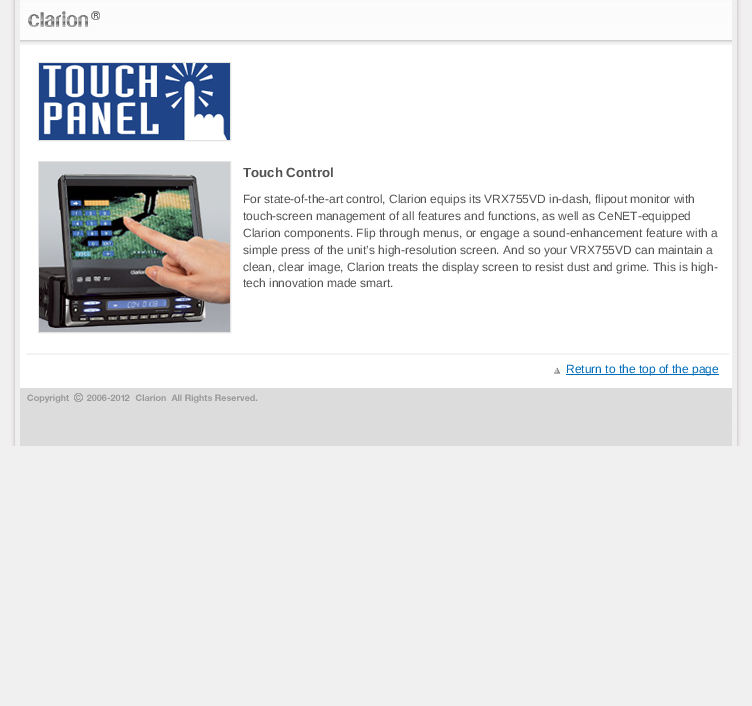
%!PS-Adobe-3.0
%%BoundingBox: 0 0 752 706
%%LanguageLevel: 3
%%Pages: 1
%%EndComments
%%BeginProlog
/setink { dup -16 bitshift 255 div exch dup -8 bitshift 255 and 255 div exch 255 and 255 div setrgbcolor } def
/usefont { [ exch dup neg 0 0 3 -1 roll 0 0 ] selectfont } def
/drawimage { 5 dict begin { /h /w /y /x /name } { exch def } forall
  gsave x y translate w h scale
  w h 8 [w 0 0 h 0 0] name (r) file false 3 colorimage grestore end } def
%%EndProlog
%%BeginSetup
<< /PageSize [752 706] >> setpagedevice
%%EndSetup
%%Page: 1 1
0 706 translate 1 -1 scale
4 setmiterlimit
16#F1F0F1 setink
0 0 752 706 rectfill
16#FFFFFF setink
20 47 712 341 rectfill
(img1.raw) 10 0 10 446 drawimage
(img2.raw) 732 0 10 446 drawimage
(img3.raw) 20 0 712 47 drawimage
(img4.raw) 28 11 72 16 drawimage
16#E3E3E3 setink
38.5 62.5 192 78 rectstroke
(img5.raw) 39 63 191 77 drawimage
38.5 161.5 192 171 rectstroke
(img6.raw) 39 162 191 170 drawimage
/LiberationSans-Bold 13.25 usefont
16#535353 setink
243 177 moveto (Touch Control) show
/LiberationSans-Regular 12 usefont
[
    [(For state-of-the-art control, Clarion equips its VRX755VD in-dash, flipout monitor with) 243 203]
    [(touch-screen management of all features and functions, as well as CeNET-equipped) 243 220]
    [(Clarion components. Flip through menus, or engage a sound-enhancement feature with a) 243 237]
    [(simple press of the unit’s high-resolution screen. And so your VRX755VD can maintain a) 243 254]
    [(clean, clear image, Clarion treats the display screen to resist dust and grime. This is high-) 243 271]
    [(tech innovation made smart.) 243 287]
] { aload pop moveto show } forall
16#F3F3F3 setink
26 353 703 2 rectfill
(img7.raw) 554 367 6 7 drawimage
16#006DBB setink
566 374 153 1 rectfill
566 373 moveto (Return to the top of the page) show
16#DCDCDC setink
20 388 712 58 rectfill
(img8.raw) 27 393 231 10 drawimage
showpage
%%EOF
